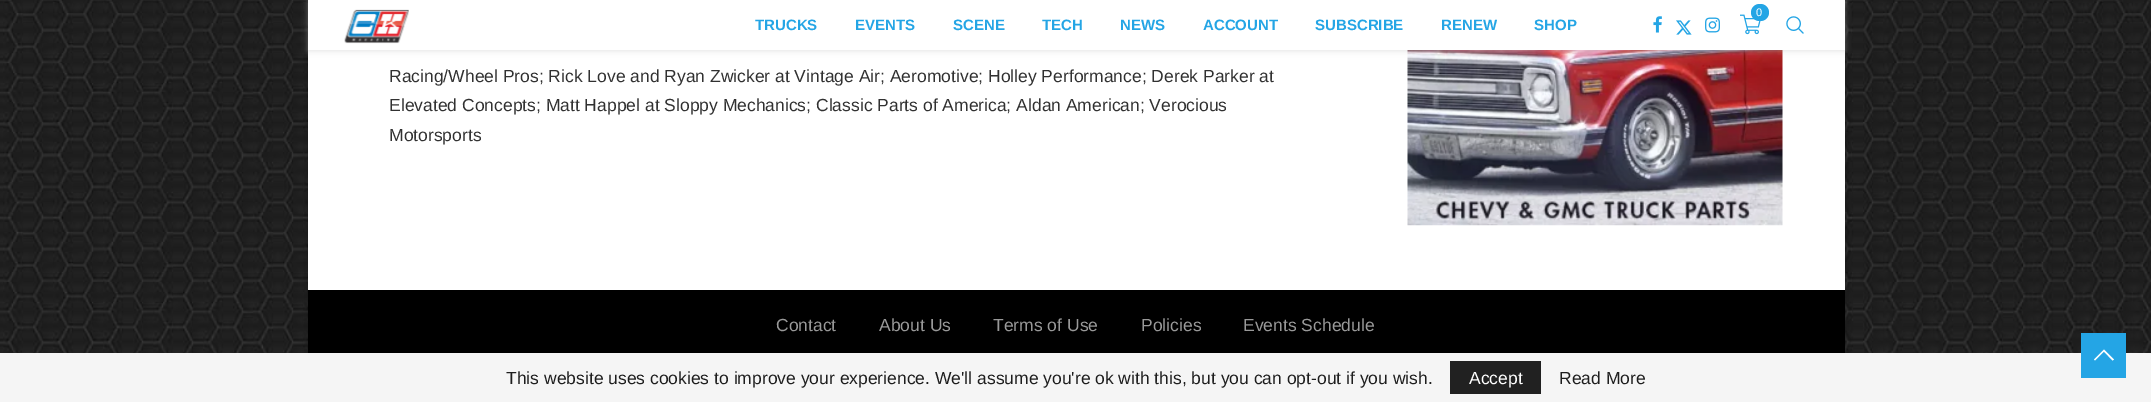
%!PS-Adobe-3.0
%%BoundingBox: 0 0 2151 402
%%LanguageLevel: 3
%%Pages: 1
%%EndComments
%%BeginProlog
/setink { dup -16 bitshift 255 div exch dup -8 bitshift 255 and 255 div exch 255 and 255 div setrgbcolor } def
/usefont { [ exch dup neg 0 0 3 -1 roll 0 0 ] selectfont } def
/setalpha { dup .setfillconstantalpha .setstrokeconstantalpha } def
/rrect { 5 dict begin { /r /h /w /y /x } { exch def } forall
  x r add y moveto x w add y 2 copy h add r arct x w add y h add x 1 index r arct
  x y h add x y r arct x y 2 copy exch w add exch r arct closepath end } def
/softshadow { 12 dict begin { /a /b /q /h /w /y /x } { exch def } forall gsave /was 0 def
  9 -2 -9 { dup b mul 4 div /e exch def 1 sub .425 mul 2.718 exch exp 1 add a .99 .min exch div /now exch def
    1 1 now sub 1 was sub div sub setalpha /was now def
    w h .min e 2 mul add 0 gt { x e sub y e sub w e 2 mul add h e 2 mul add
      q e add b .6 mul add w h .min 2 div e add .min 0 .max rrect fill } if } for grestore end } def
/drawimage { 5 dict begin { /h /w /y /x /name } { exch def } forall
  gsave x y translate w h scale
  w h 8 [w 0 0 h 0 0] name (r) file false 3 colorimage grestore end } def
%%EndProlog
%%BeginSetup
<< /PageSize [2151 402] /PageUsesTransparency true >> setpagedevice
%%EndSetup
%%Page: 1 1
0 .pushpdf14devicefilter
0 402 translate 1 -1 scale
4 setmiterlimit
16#FFFFFF setink
0 0 2151 402 rectfill
(img1.raw) 0 0 2151 353 drawimage
16#000000 setink
308 -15 1537 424 0 5 0.2 softshadow
16#FFFFFF setink
308 50 1537 240 rectfill
(img8.raw) 1407 50 376 176 drawimage
16#BEBEBE setink
308 1 1537 50 0 3 0.46 softshadow
16#FFFFFF setink
308 0 1537 50 rectfill
(img2.raw) 344 9 65 35 drawimage
/LiberationSans-Bold 15 usefont
16#24A5E5 setink
[
    [(TRUCKS) 755 30]
    [(EVENTS) 855 30]
    [(SCENE) 953 30]
    [(TECH) 1042 30]
    [(NEWS) 1120 30]
    [(ACCOUNT) 1203 30]
    [(SUBSCRIBE) 1315 30]
    [(RENEW) 1441 30]
    [(SHOP) 1534 30]
] { aload pop moveto show } forall
(img3.raw) 1653 16 9 17 drawimage
(img4.raw) 1676 20 16 15 drawimage
(img5.raw) 1705 17 15 16 drawimage
(img6.raw) 1740 14 21 21 drawimage
1751 4 18 17 8.5 rrect fill
/LiberationSans-Regular 11 usefont
16#FFFFFF setink
1756 16 moveto (0) show
(img7.raw) 1786 16 18 18 drawimage
/LiberationSans-Regular 17.5 usefont
16#313131 setink
[
    [(Racing/Wheel Pros; Rick Love and Ryan Zwicker at Vintage Air; Aeromotive; Holley Performance; Derek Parker at) 389 82]
    [(Elevated Concepts; Matt Happel at Sloppy Mechanics; Classic Parts of America; Aldan American; Verocious) 389 111]
    [(Motorsports) 389 141]
] { aload pop moveto show } forall
16#000000 setink
308 290 1537 63 rectfill
16#999999 setink
[
    [(Contact) 776 331]
    [(About Us) 879 331]
    [(Terms of Use) 993 331]
    [(Policies) 1141 331]
    [(Events Schedule) 1243 331]
] { aload pop moveto show } forall
16#F5F5F5 setink
0 353 2151 49 rectfill
16#1E1E1E setink
506 384 moveto (This website uses cookies to improve your experience. We'll assume you're ok with this, but you can opt-out if you wish.) show
16#212121 setink
1450 361 91 33 rectfill
16#FFFFFF setink
1469 384 moveto (Accept) show
16#1E1E1E setink
1559 384 moveto (Read More) show
16#24A5E5 setink
2081 333 45 45 rectfill
16#FFFFFF setink
2104 349.5 moveto 2094 359.5 lineto 2095 360.5 lineto 2104 351.5 lineto 2112.5 360.5 lineto 2114 359.5 lineto closepath fill
.poppdf14devicefilter showpage
%%EOF
